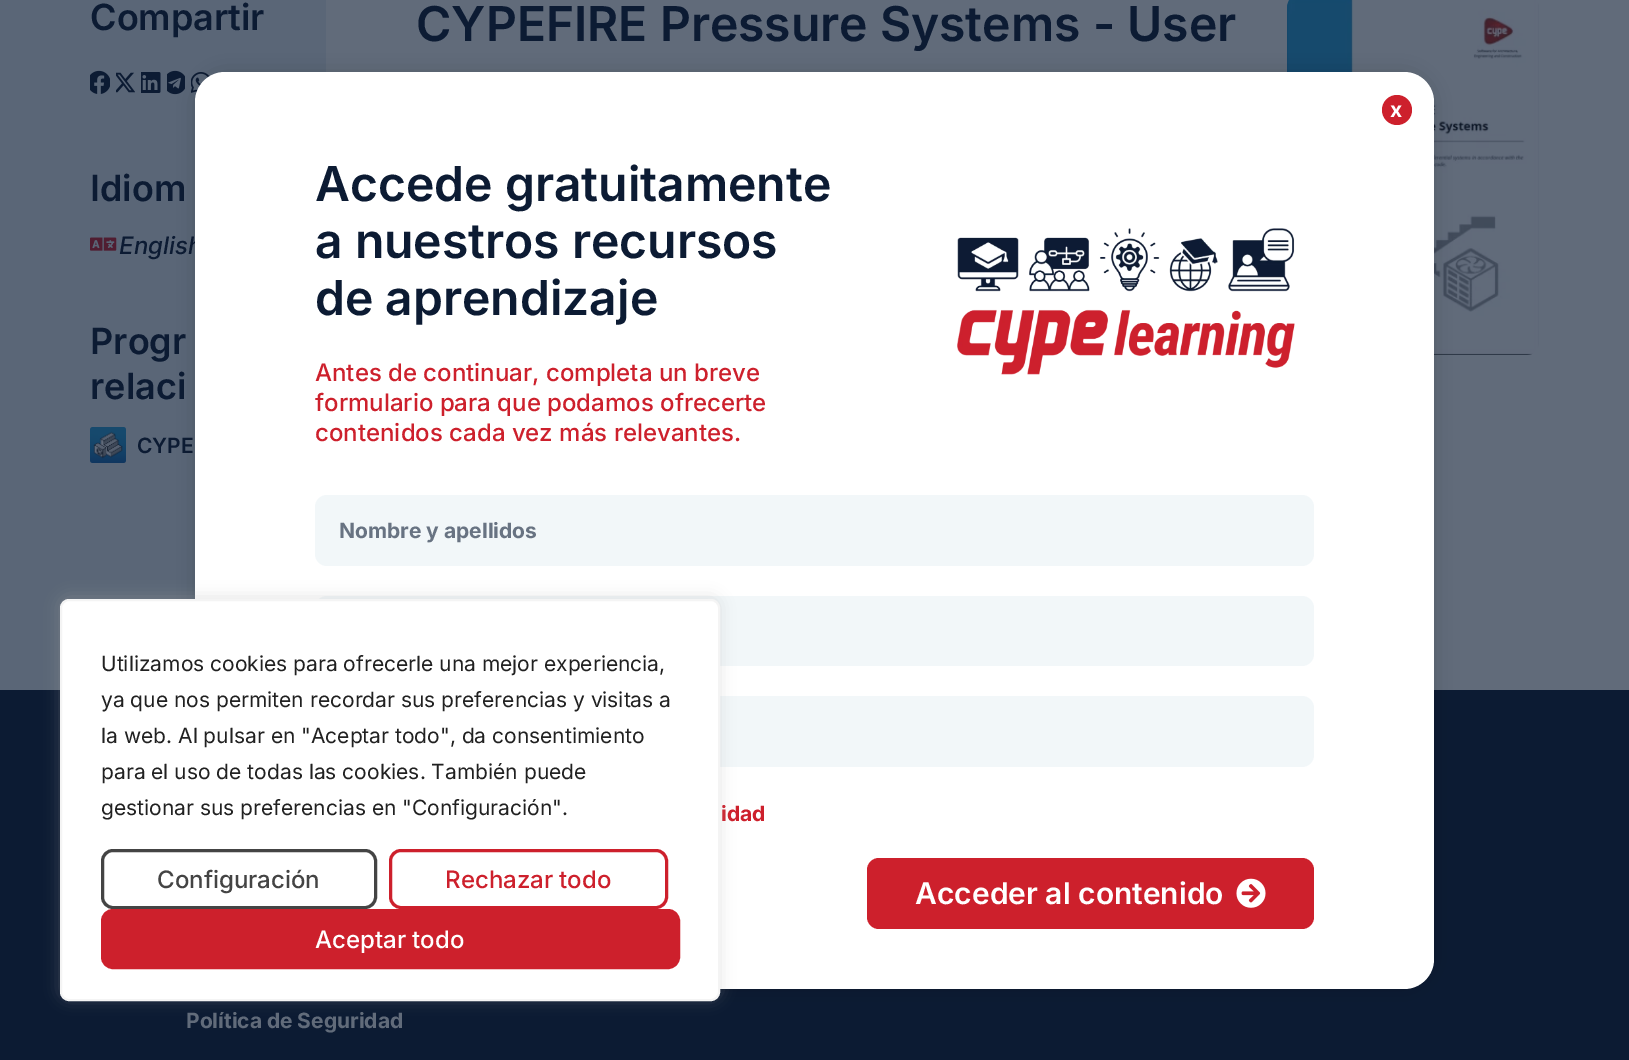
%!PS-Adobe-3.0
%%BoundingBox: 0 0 1629 1060
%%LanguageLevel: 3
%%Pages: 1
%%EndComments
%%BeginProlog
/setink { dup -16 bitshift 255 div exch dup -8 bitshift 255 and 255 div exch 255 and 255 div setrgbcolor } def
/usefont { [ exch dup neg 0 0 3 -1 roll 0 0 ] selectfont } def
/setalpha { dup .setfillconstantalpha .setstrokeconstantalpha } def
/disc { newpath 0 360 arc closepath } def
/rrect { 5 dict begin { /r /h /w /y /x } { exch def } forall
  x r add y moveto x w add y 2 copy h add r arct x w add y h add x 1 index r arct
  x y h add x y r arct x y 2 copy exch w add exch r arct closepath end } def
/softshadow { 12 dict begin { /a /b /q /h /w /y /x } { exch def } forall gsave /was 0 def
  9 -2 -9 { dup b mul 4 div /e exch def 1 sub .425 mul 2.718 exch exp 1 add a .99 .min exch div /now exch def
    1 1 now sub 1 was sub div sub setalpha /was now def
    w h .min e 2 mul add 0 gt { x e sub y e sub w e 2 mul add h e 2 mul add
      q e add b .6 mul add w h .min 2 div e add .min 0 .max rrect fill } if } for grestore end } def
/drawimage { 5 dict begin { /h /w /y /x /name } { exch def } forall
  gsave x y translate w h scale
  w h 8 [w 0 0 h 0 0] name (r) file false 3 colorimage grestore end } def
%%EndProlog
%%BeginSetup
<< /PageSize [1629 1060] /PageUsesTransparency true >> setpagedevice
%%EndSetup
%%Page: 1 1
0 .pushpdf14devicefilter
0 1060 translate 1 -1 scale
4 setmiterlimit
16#616B7A setink
0 0 1629 1060 rectfill
16#5A6677 setink
0 0 326 690 rectfill
/Inter-SemiBold 36 usefont
16#0C1B33 setink
90 30 moveto (Compartir) show
(img1.raw) 90 70 20 24 drawimage
(img2.raw) 116 72 19 21 drawimage
(img3.raw) 141 72 20 21 drawimage
(img4.raw) 167 70 18 25 drawimage
(img5.raw) 191 72 19 21 drawimage
(img6.raw) 216 73 2 1 drawimage
90 201 moveto (Idiom) show
(img7.raw) 90 237 27 14 drawimage
/Inter-MediumItalic 24 usefont
119 254 moveto (English) show
/Inter-SemiBold 36 usefont
90 354 moveto (Progr) show
90 399 moveto (relaci) show
(img8.raw) 90 427 36 36 drawimage
/Inter-SemiBold 21 usefont
137 453 moveto (CYPE) show
/Inter-SemiBold 48 usefont
416 41 moveto (CYPEFIRE Pressure Systems - User) show
(img9.raw) 1287 0 252 355 drawimage
0 690 1629 370 rectfill
/Inter-Bold 21 usefont
16#616B7A setink
186 1028 moveto (Política de Seguridad) show
16#000000 setink
195 72 1239 917 30 11 0.15 softshadow
16#FFFFFF setink
195 72 1239 917 30 rrect fill
16#CD202C setink
1397 110 15 disc fill
16#FFFFFF setink
1390 117 moveto (x) show
/Inter-SemiBold 48 usefont
16#0C1B33 setink
[
    [(Accede gratuitamente) 315 201]
    [(a nuestros recursos) 315 258]
    [(de aprendizaje) 315 315]
] { aload pop moveto show } forall
/Inter-Medium 24 usefont
16#CD202C setink
[
    [(Antes de continuar, completa un breve) 315 381]
    [(formulario para que podamos ofrecerte) 315 411]
    [(contenidos cada vez más relevantes.) 315 441]
] { aload pop moveto show } forall
(img10.raw) 957 228 338 147 drawimage
16#F2F7F9 setink
315 495 999 71 12 rrect fill
/Inter-Bold 21 usefont
16#687382 setink
339 538 moveto (Nombre y apellidos) show
16#F2F7F9 setink
315 596 999 70 12 rrect fill
572 696 742 71 12 rrect fill
16#CD202C setink
721 821 moveto (idad) show
867 858 447 71 12 rrect fill
/Inter-SemiBold 30 usefont
16#FFFFFF setink
915 904 moveto (Acceder al contenido) show
(img11.raw) 1236 878 30 30 drawimage
16#ACABAB setink
60 597 660 402 9 7.5 0.3 softshadow
16#FFFFFF setink
61 600 658 400 8 rrect gsave fill grestore
16#F4F4F4 setink
2 setlinewidth
stroke
/Inter-Regular 21 usefont
16#212121 setink
[
    [(Utilizamos cookies para ofrecerle una mejor experiencia,) 101 671]
    [(ya que nos permiten recordar sus preferencias y visitas a) 101 707]
    [(la web. Al pulsar en "Aceptar todo", da consentimiento) 101 743]
    [(para el uso de todas las cookies. También puede) 101 779]
    [(gestionar sus preferencias en "Configuración".) 101 815]
] { aload pop moveto show } forall
16#444444 setink
3 setlinewidth
102.5 850.5 273 57 10.5 rrect stroke
/Inter-Medium 24 usefont
157 888 moveto (Configuración) show
16#CD202C setink
390.5 850.5 276 57 10.5 rrect stroke
445 888 moveto (Rechazar todo) show
102.5 910.5 576 57 10.5 rrect gsave fill grestore
stroke
16#FFFFFF setink
315 948 moveto (Aceptar todo) show
.poppdf14devicefilter showpage
%%EOF
